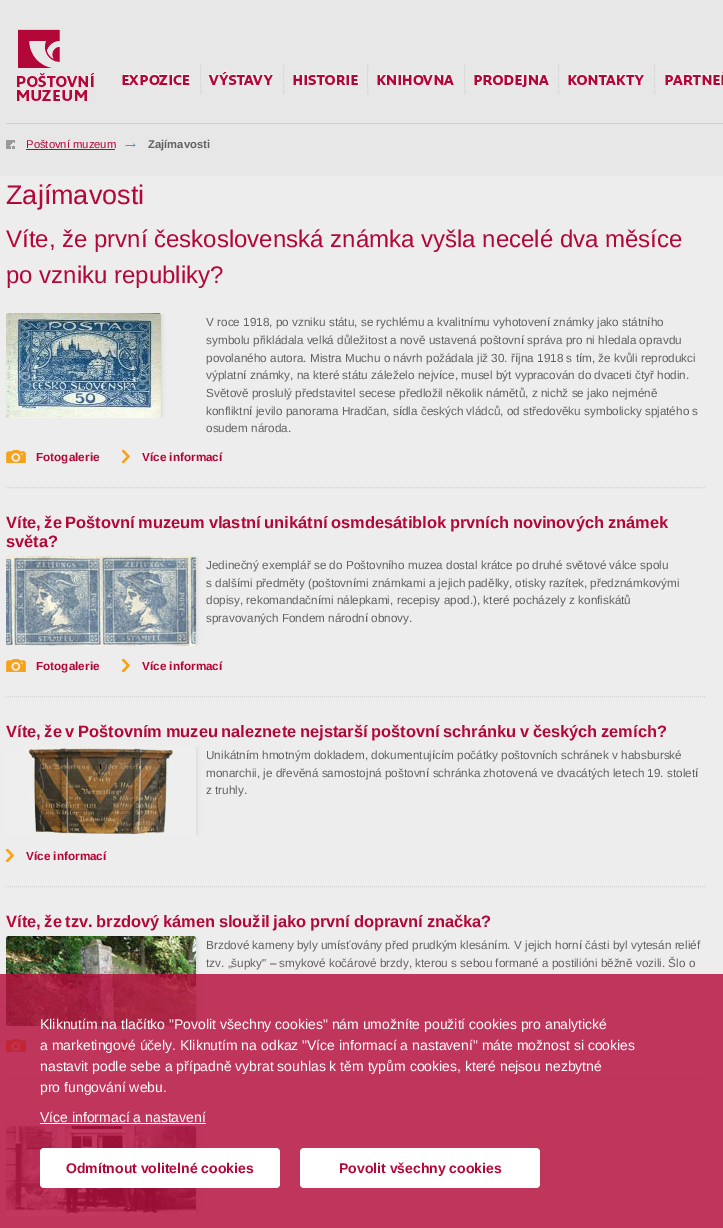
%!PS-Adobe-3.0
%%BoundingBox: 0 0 723 1228
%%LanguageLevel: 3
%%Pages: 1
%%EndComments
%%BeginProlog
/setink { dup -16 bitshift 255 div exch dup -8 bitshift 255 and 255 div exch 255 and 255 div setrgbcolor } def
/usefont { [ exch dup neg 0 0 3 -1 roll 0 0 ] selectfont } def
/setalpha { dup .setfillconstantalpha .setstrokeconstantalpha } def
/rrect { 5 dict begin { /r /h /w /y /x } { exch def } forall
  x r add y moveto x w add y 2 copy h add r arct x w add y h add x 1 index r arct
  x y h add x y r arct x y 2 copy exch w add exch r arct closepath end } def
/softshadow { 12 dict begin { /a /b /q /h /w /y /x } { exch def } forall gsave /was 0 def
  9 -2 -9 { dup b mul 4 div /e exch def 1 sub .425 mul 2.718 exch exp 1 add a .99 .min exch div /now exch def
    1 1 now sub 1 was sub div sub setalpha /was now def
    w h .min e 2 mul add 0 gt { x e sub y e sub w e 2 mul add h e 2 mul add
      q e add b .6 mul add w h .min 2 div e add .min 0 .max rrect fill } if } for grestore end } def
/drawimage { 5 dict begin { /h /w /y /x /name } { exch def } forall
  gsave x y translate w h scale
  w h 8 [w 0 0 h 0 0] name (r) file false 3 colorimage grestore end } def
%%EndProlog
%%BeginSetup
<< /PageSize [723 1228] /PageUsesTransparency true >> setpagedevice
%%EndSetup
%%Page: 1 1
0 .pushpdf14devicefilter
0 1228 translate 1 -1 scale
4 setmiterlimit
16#EDEDED setink
0 0 723 1228 rectfill
16#E7E7E7 setink
0 0 723 176 rectfill
16#D2CECF setink
6 123 717 1 rectfill
(img1.raw) 17 29 77 72 drawimage
(img2.raw) 113 70 78 15 drawimage
[1 1] 0 setdash
200.5 65 moveto 200.5 95 lineto stroke
(img3.raw) 201 67 73 18 drawimage
283.5 65 moveto 283.5 95 lineto stroke
(img4.raw) 284 70 75 15 drawimage
367.5 65 moveto 367.5 95 lineto stroke
(img5.raw) 368 70 87 15 drawimage
464.5 65 moveto 464.5 95 lineto stroke
(img6.raw) 465 70 85 17 drawimage
558.5 65 moveto 558.5 95 lineto stroke
(img7.raw) 559 70 86 15 drawimage
654.5 65 moveto 654.5 95 lineto stroke
(img8.raw) 655 67 68 18 drawimage
(img9.raw) 6 140 9 9 drawimage
/LiberationSans-Regular 11.25 usefont
16#B30738 setink
26 148 moveto (Poštovní muzeum) show
26 149 89 1 rectfill
(img10.raw) 125 143 11 4 drawimage
/LiberationSans-Bold 11.25 usefont
16#616161 setink
148 148 moveto (Zajímavosti) show
/LiberationSans-Regular 27 usefont
16#B30738 setink
6 204 moveto (Zajímavosti) show
/LiberationSans-Regular 24 usefont
6 247 moveto (Víte, že první československá známka vyšla necelé dva měsíce) show
6 283 moveto (po vzniku republiky?) show
gsave
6 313 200 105 rectclip
16#C9C9C9 setink
6 313 155 105 3 2.5 1 softshadow
grestore
(img11.raw) 6 313 155 105 drawimage
/LiberationSans-Regular 11.75 usefont
16#616161 setink
[
    [(V roce 1918, po vzniku státu, se rychlému a kvalitnímu vyhotovení známky jako státního) 206 326]
    [(symbolu přikládala velká důležitost a nově ustavená poštovní správa pro ni hledala opravdu) 206 344]
    [(povolaného autora. Mistra Muchu o návrh požádala již 30. října 1918 s tím, že kvůli reprodukci) 206 362]
    [(výplatní známky, na které státu záleželo nejvíce, musel být vypracován do dvaceti čtyř hodin.) 206 379]
    [(Světově proslulý představitel secese předložil několik námětů, z nichž se jako nejméně) 206 397]
    [(konfliktní jevilo panorama Hradčan, sídla českých vládců, od středověku symbolicky spjatého s) 206 415]
    [(osudem národa.) 206 432]
] { aload pop moveto show } forall
(img12.raw) 6 450 20 13 drawimage
/LiberationSans-Bold 11.75 usefont
16#B30738 setink
36 461 moveto (Fotogalerie) show
(img13.raw) 122 450 8 13 drawimage
142 461 moveto (Více informací) show
16#D6D2D3 setink
6 487.5 moveto 706 487.5 lineto stroke
/LiberationSans-Bold 16.45 usefont
16#B30738 setink
6 528 moveto -1 0 32 (Víte, že Poštovní muzeum vlastní unikátní osmdesátiblok prvních novinových známek) widthshow
6 547 moveto (světa?) show
gsave
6 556 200 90 rectclip
16#C9C9C9 setink
6 556 190 90 3 2.5 1 softshadow
grestore
(img14.raw) 6 556 190 90 drawimage
/LiberationSans-Regular 11.75 usefont
16#616161 setink
[
    [(Jedinečný exemplář se do Poštovního muzea dostal krátce po druhé světové válce spolu) 206 569]
    [(s dalšími předměty \(poštovními známkami a jejich padělky, otisky razítek, předznámkovými) 206 587]
    [(dopisy, rekomandačními nálepkami, recepisy apod.\), které pocházely z konfiskátů) 206 604]
    [(spravovaných Fondem národní obnovy.) 206 622]
] { aload pop moveto show } forall
(img12.raw) 6 659 20 13 drawimage
/LiberationSans-Bold 11.75 usefont
16#B30738 setink
36 670 moveto (Fotogalerie) show
(img13.raw) 122 659 8 13 drawimage
142 670 moveto (Více informací) show
16#D6D2D3 setink
6 696.5 moveto 706 696.5 lineto stroke
/LiberationSans-Bold 16.45 usefont
16#B30738 setink
6 737 moveto -1 0 32 (Víte, že v Poštovním muzeu naleznete nejstarší poštovní schránku v českých zemích?) widthshow
gsave
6 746 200 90 rectclip
16#C9C9C9 setink
6 746 190 90 3 2.5 1 softshadow
grestore
(img15.raw) 6 746 190 90 drawimage
/LiberationSans-Regular 11.75 usefont
16#616161 setink
[
    [(Unikátním hmotným dokladem, dokumentujícím počátky poštovních schránek v habsburské) 206 759]
    [(monarchii, je dřevěná samostojná poštovní schránka zhotovená ve dvacátých letech 19. století) 206 777]
    [(z truhly.) 206 794]
] { aload pop moveto show } forall
(img13.raw) 6 849 8 13 drawimage
/LiberationSans-Bold 11.75 usefont
16#B30738 setink
26 860 moveto (Více informací) show
16#D6D2D3 setink
6 886.5 moveto 706 886.5 lineto stroke
/LiberationSans-Bold 16.45 usefont
16#B30738 setink
6 927 moveto -1 0 32 (Víte, že tzv. brzdový kámen sloužil jako první dopravní značka?) widthshow
gsave
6 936 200 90 rectclip
16#C9C9C9 setink
6 936 190 90 3 2.5 1 softshadow
grestore
(img16.raw) 6 936 190 90 drawimage
/LiberationSans-Regular 11.75 usefont
16#616161 setink
206 949 moveto (Brzdové kameny byly umísťovány před prudkým klesáním. V jejich horní části byl vytesán reliéf) show
206 967 moveto (tzv. „šupky" – smykové kočárové brzdy, kterou s sebou formané a postilióni běžně vozili. Šlo o) show
(img12.raw) 6 1039 20 13 drawimage
(img13.raw) 122 1039 8 13 drawimage
16#D6D2D3 setink
6 1076.5 moveto 706 1076.5 lineto stroke
gsave
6 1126 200 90 rectclip
16#C9C9C9 setink
6 1126 190 90 3 2.5 1 softshadow
grestore
(img17.raw) 6 1126 190 90 drawimage
0.8 setalpha
16#B30738 setink
0 974 723 254 rectfill
/LiberationSans-Regular 14 usefont
1 setalpha
16#FFFFFF setink
[
    [(Kliknutím na tlačítko "Povolit všechny cookies" nám umožníte použití cookies pro analytické) 40 1029]
    [(a marketingové účely. Kliknutím na odkaz "Více informací a nastavení" máte možnost si cookies) 40 1050]
    [(nastavit podle sebe a případně vybrat souhlas k těm typům cookies, které nejsou nezbytné) 40 1071]
    [(pro fungování webu.) 40 1092]
    [(Více informací a nastavení) 40 1122]
] { aload pop moveto show } forall
40 1123 166 1 rectfill
40 1148 240 40 4 rrect fill
/LiberationSans-Bold 14 usefont
16#B30738 setink
66 1173 moveto (Odmítnout volitelné cookies) show
16#FFFFFF setink
300 1148 240 40 4 rrect fill
16#B30738 setink
339 1173 moveto (Povolit všechny cookies) show
.poppdf14devicefilter showpage
%%EOF
